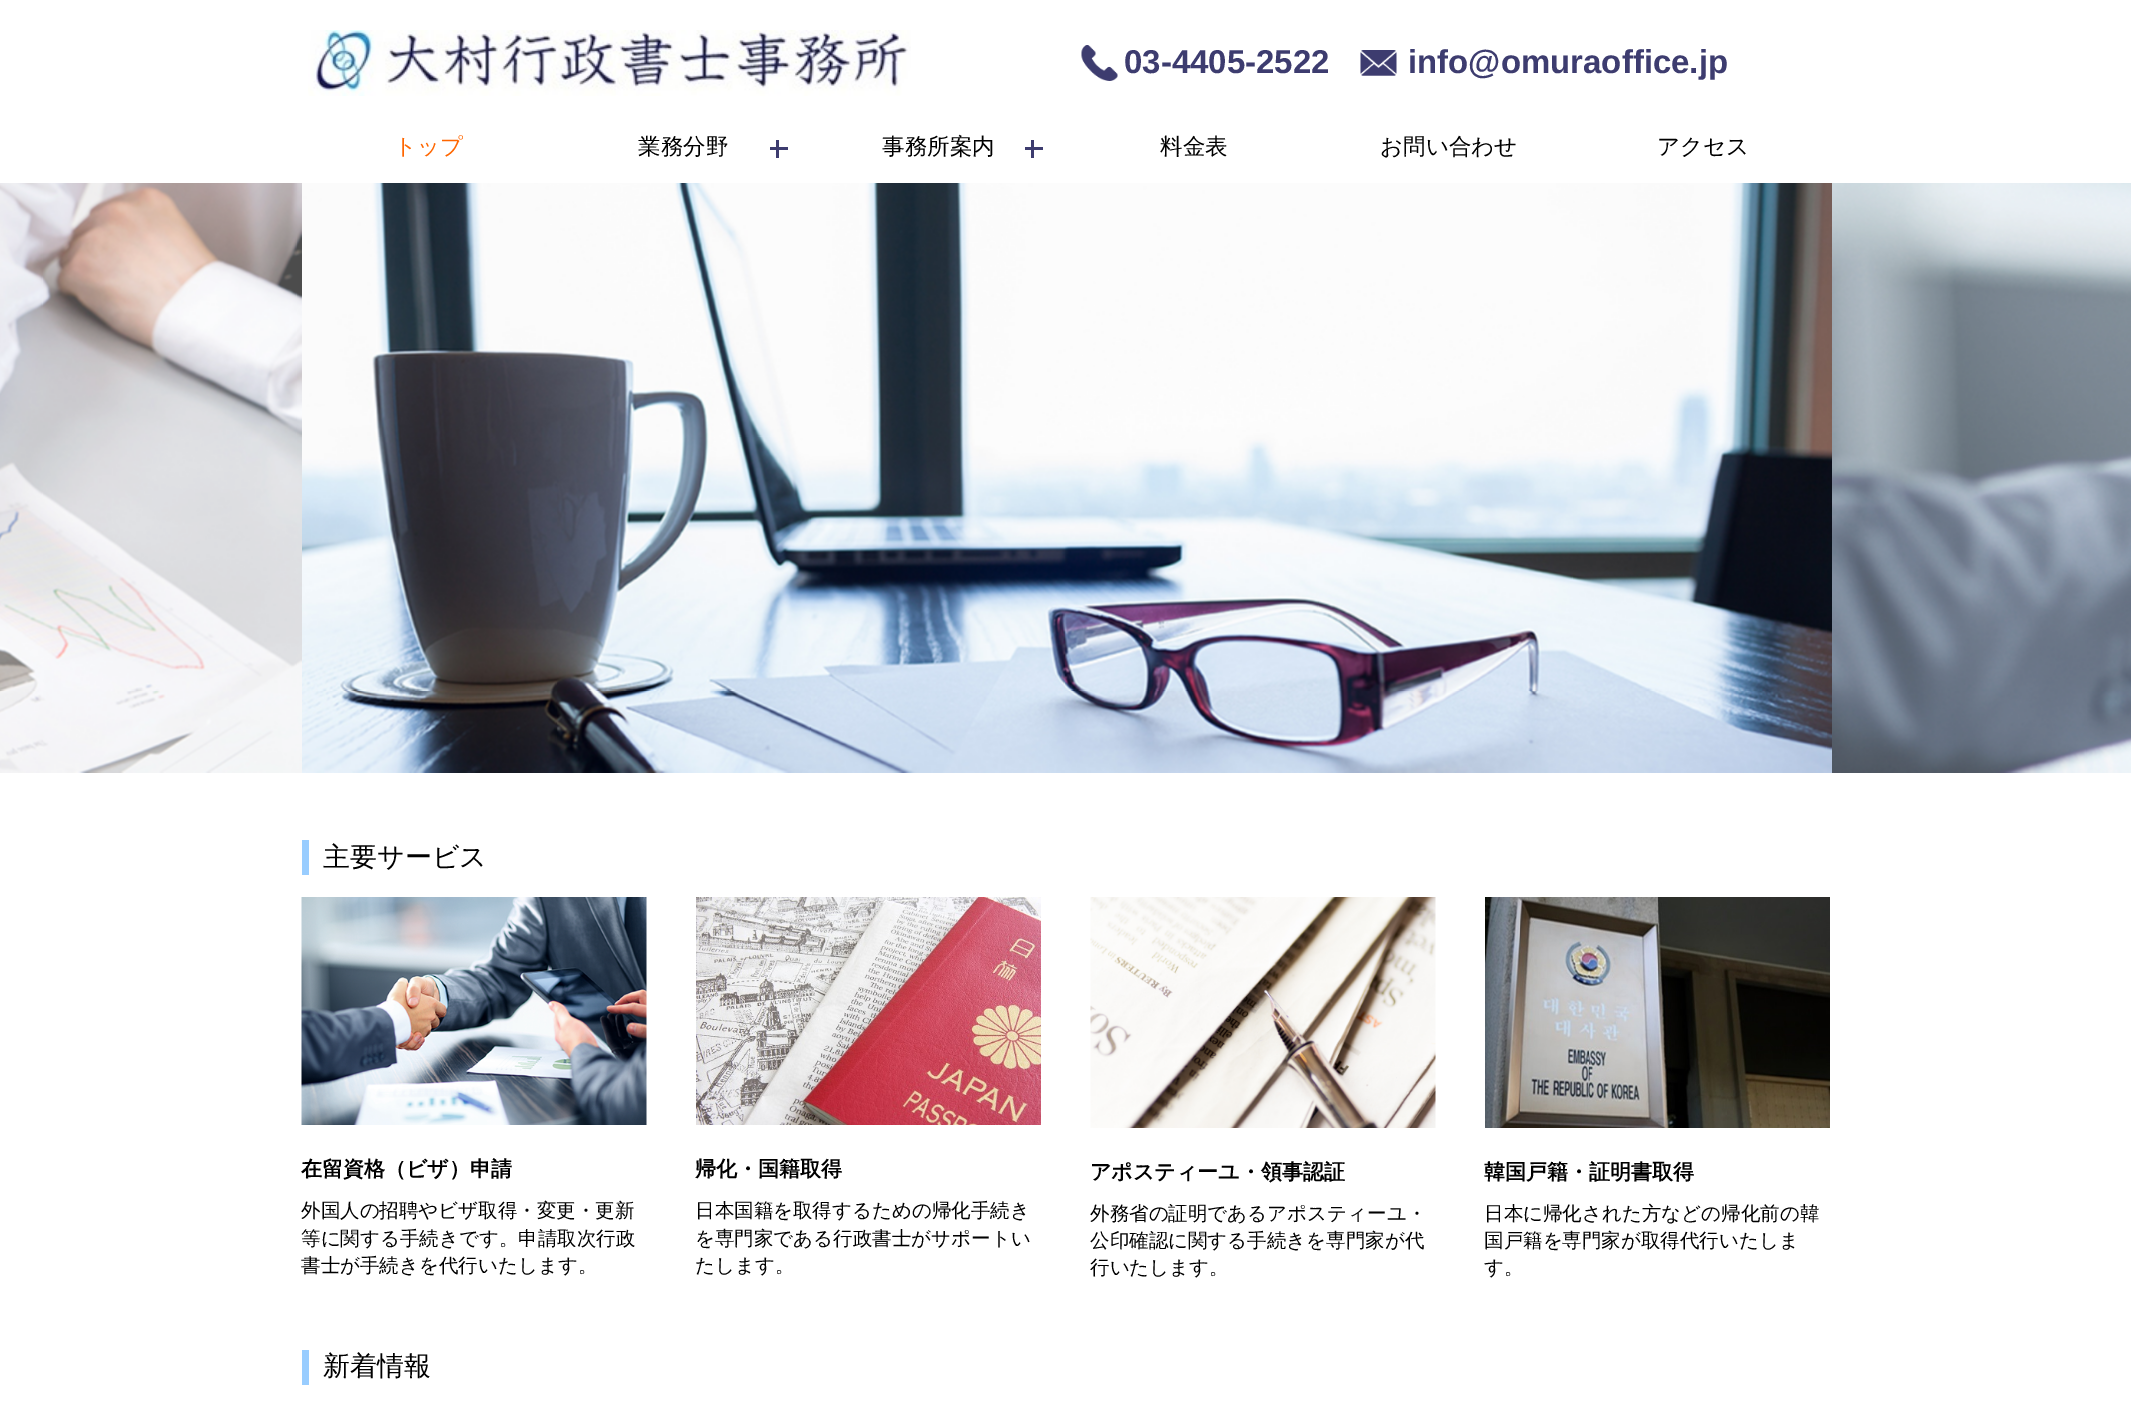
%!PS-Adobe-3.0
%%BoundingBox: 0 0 2131 1402
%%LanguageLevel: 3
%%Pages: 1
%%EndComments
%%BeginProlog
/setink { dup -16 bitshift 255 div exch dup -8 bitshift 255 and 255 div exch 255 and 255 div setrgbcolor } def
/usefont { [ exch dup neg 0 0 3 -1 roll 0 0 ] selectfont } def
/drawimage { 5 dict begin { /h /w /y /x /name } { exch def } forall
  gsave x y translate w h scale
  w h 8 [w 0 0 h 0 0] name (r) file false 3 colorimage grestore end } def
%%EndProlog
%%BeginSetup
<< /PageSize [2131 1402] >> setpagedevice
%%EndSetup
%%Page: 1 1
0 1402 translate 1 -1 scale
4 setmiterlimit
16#FFFFFF setink
0 0 2131 1402 rectfill
(img1.raw) 308 30 603 66 drawimage
(img2.raw) 1081 45 37 36 drawimage
/LiberationSans-Bold 33 usefont
16#3D3C6F setink
1124 73 moveto (03-4405-2522) show
(img3.raw) 1360 50 37 26 drawimage
1408 73 moveto (info@omuraoffice.jp) show
/WenQuanYiZenHei-Medium 22.5 usefont
16#FF6600 setink
394 154 moveto (トップ) show
16#000000 setink
638 154 moveto (業務分野) show
16#3D3C6F setink
770 147 18 3 rectfill
776 140 3 18 rectfill
16#000000 setink
882 154 moveto (事務所案内) show
16#3D3C6F setink
1025 147 18 3 rectfill
1031 140 3 18 rectfill
16#000000 setink
[
    [(料金表) 1160 154]
    [(お問い合わせ) 1380 154]
    [(アクセス) 1657 154]
] { aload pop moveto show } forall
(img4.raw) 0 183 302 590 drawimage
(img5.raw) 302 183 1530 590 drawimage
(img6.raw) 1832 183 299 590 drawimage
16#99CDFF setink
302 840 7 35 rectfill
/WenQuanYiZenHei-Medium 27 usefont
16#000000 setink
323 866 moveto (主要サービス) show
(img7.raw) 301 897 346 228 drawimage
/WenQuanYiZenHei-Bold 21 usefont
301 1176 moveto (在留資格（ビザ）申請) show
/WenQuanYiZenHei-Medium 19.5 usefont
[
    [(外国人の招聘やビザ取得・変更・更新) 301 1217]
    [(等に関する手続きです。申請取次行政) 301 1245]
    [(書士が手続きを代行いたします。) 301 1272]
] { aload pop moveto show } forall
(img8.raw) 696 897 345 228 drawimage
/WenQuanYiZenHei-Bold 21 usefont
695 1176 moveto (帰化・国籍取得) show
/WenQuanYiZenHei-Medium 19.5 usefont
[
    [(日本国籍を取得するための帰化手続き) 695 1217]
    [(を専門家である行政書士がサポートい) 695 1245]
    [(たします。) 695 1272]
] { aload pop moveto show } forall
(img9.raw) 1090 897 346 231 drawimage
/WenQuanYiZenHei-Bold 21 usefont
1090 1179 moveto (アポスティーユ・領事認証) show
/WenQuanYiZenHei-Medium 19.5 usefont
[
    [(外務省の証明であるアポスティーユ・) 1090 1220]
    [(公印確認に関する手続きを専門家が代) 1090 1247]
    [(行いたします。) 1090 1274]
] { aload pop moveto show } forall
(img10.raw) 1485 897 345 231 drawimage
/WenQuanYiZenHei-Bold 21 usefont
1484 1179 moveto (韓国戸籍・証明書取得) show
/WenQuanYiZenHei-Medium 19.5 usefont
[
    [(日本に帰化された方などの帰化前の韓) 1484 1220]
    [(国戸籍を専門家が取得代行いたしま) 1484 1247]
    [(す。) 1484 1274]
] { aload pop moveto show } forall
16#99CDFF setink
302 1350 7 35 rectfill
/WenQuanYiZenHei-Medium 27 usefont
16#000000 setink
323 1375 moveto (新着情報) show
showpage
%%EOF
